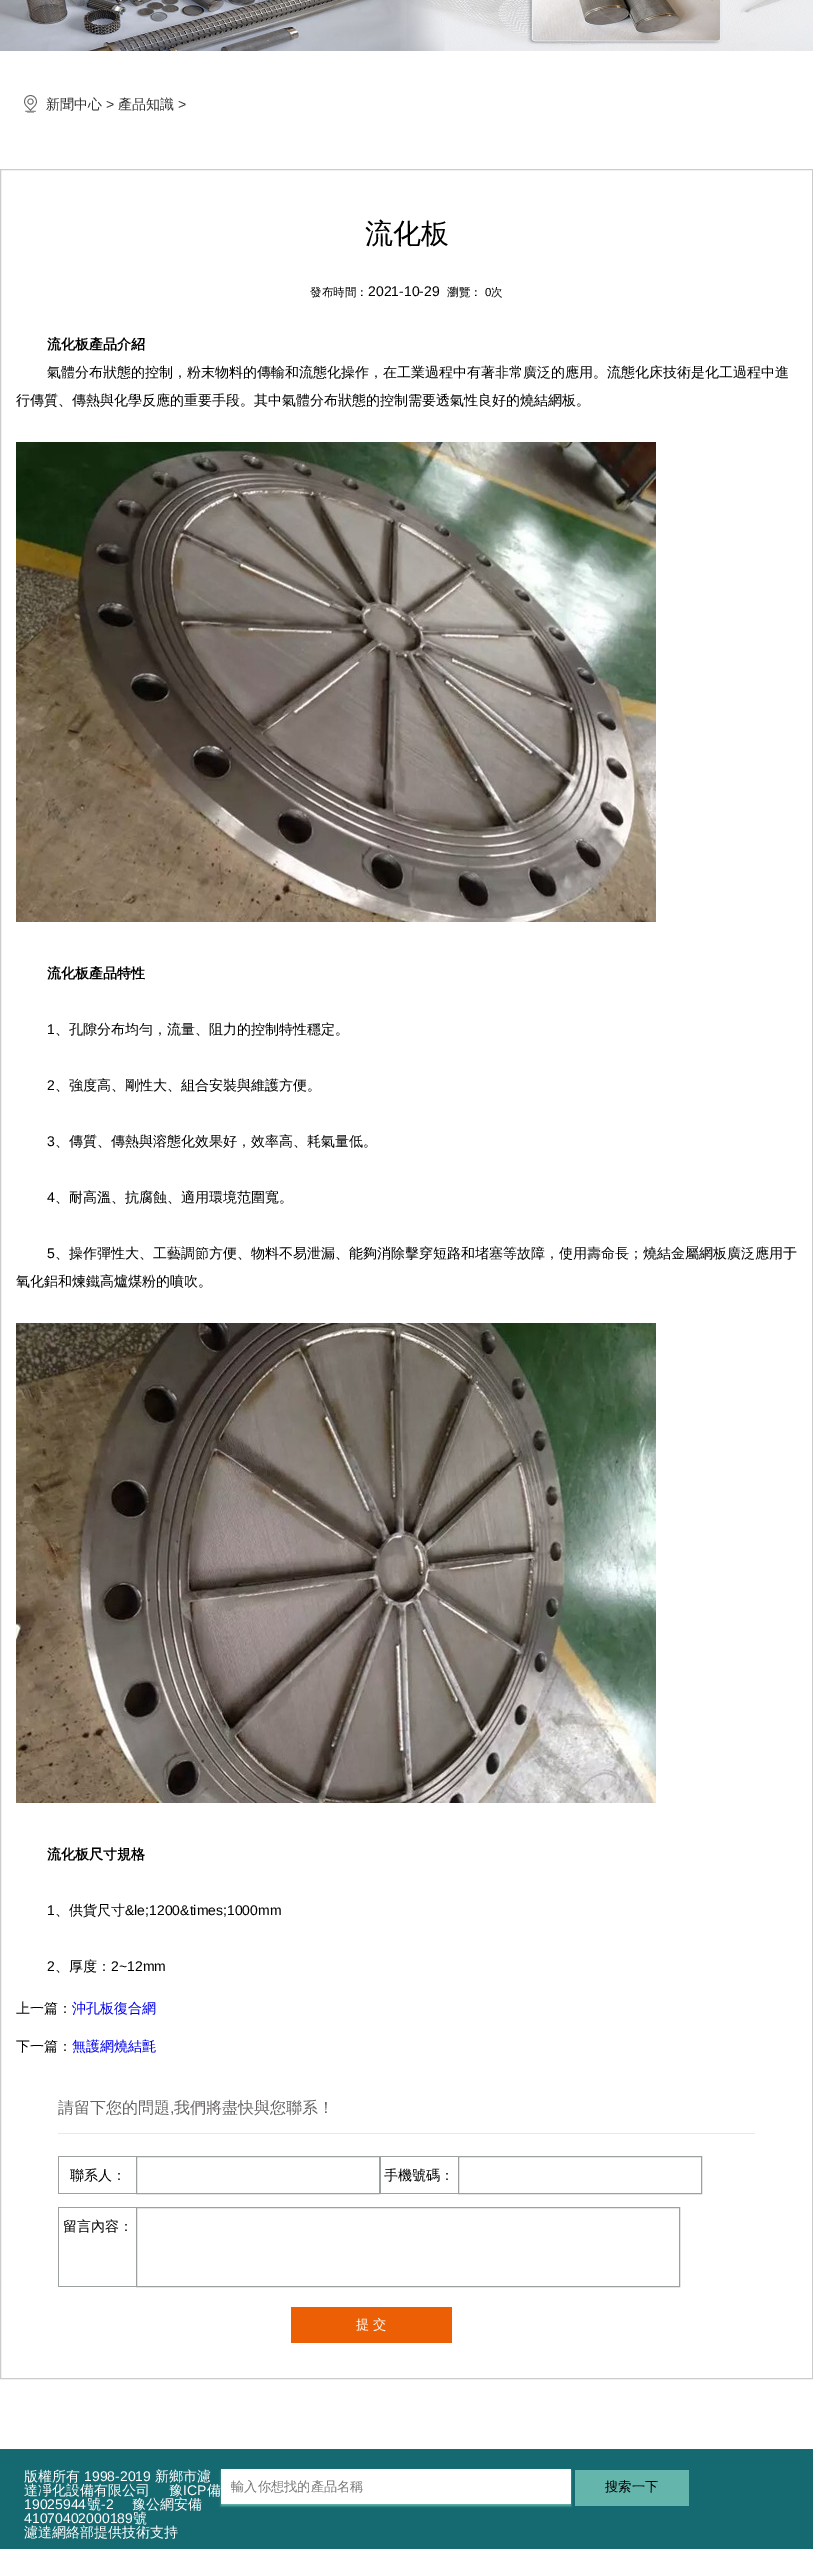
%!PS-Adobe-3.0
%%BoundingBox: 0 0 813 2549
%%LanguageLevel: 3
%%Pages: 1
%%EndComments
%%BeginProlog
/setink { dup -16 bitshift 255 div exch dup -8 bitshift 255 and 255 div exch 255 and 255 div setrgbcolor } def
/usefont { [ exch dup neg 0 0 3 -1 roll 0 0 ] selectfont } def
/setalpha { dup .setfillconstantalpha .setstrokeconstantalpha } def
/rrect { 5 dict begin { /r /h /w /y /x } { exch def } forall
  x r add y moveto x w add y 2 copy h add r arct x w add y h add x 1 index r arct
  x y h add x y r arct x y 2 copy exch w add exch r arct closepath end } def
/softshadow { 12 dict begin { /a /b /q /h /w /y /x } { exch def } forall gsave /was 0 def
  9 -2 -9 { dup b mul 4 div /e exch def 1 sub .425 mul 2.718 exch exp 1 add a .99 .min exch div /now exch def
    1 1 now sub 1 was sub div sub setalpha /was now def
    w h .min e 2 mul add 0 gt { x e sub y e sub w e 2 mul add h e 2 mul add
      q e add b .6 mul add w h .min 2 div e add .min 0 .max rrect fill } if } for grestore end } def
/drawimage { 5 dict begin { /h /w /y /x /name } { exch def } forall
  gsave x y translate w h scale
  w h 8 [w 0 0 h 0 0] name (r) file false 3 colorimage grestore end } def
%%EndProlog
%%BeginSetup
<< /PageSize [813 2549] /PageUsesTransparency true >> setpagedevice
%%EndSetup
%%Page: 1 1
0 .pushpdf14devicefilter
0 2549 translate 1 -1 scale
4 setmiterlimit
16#FFFFFF setink
0 0 813 2549 rectfill
(img1.raw) 0 0 813 51 drawimage
(img2.raw) 24 95 13 18 drawimage
/WenQuanYiZenHei-Medium 14 usefont
16#333333 setink
46 109 moveto (新聞中心) show
/LiberationSans-Regular 14 usefont
106 109 moveto (>) show
/WenQuanYiZenHei-Medium 14 usefont
118 109 moveto (產品知識) show
/LiberationSans-Regular 14 usefont
178 109 moveto (>) show
16#CCCCCC setink
0.5 169.5 812 2209 rectstroke
/WenQuanYiZenHei-Medium 28 usefont
16#000000 setink
365 243 moveto (流化板) show
/WenQuanYiZenHei-Medium 11.5 usefont
310 296 moveto (發布時間：) show
/LiberationSans-Regular 14 usefont
368 296 moveto (2021-10-29) show
/WenQuanYiZenHei-Medium 11.5 usefont
447 296 moveto (瀏覽：) show
/LiberationSans-Regular 11.5 usefont
485 296 moveto (0) show
/WenQuanYiZenHei-Medium 11.5 usefont
491 296 moveto (次) show
/WenQuanYiZenHei-Bold 14 usefont
47 349 moveto (流化板產品介紹) show
/WenQuanYiZenHei-Medium 14 usefont
47 377 moveto (氣體分布狀態的控制，粉末物料的傳輸和流態化操作，在工業過程中有著非常廣泛的應用。流態化床技術是化工過程中進) show
16 405 moveto (行傳質、傳熱與化學反應的重要手段。其中氣體分布狀態的控制需要透氣性良好的燒結網板。) show
(img3.raw) 16 442 640 480 drawimage
/WenQuanYiZenHei-Bold 14 usefont
47 978 moveto (流化板產品特性) show
/LiberationSans-Regular 14 usefont
47 1034 moveto (1) show
/WenQuanYiZenHei-Medium 14 usefont
55 1034 moveto (、孔隙分布均勻，流量、阻力的控制特性穩定。) show
/LiberationSans-Regular 14 usefont
47 1090 moveto (2) show
/WenQuanYiZenHei-Medium 14 usefont
55 1090 moveto (、強度高、剛性大、組合安裝與維護方便。) show
/LiberationSans-Regular 14 usefont
47 1146 moveto (3) show
/WenQuanYiZenHei-Medium 14 usefont
55 1146 moveto (、傳質、傳熱與溶態化效果好，效率高、耗氣量低。) show
/LiberationSans-Regular 14 usefont
47 1202 moveto (4) show
/WenQuanYiZenHei-Medium 14 usefont
55 1202 moveto (、耐高溫、抗腐蝕、適用環境范圍寬。) show
/LiberationSans-Regular 14 usefont
47 1258 moveto (5) show
/WenQuanYiZenHei-Medium 14 usefont
55 1258 moveto (、操作彈性大、工藝調節方便、物料不易泄漏、能夠消除擊穿短路和堵塞等故障，使用壽命長；燒結金屬網板廣泛應用于) show
16 1286 moveto (氧化鋁和煉鐵高爐煤粉的噴吹。) show
(img4.raw) 16 1323 640 480 drawimage
/WenQuanYiZenHei-Bold 14 usefont
47 1859 moveto (流化板尺寸規格) show
/LiberationSans-Regular 14 usefont
47 1915 moveto (1) show
/WenQuanYiZenHei-Medium 14 usefont
55 1915 moveto (、供貨尺寸) show
/LiberationSans-Regular 14 usefont
125 1915 moveto (&le;1200&times;1000mm) show
47 1971 moveto (2) show
/WenQuanYiZenHei-Medium 14 usefont
55 1971 moveto (、厚度：) show
/LiberationSans-Regular 14 usefont
111 1971 moveto (2~12mm) show
/WenQuanYiZenHei-Medium 14 usefont
16 2013 moveto (上一篇：) show
16#0000EE setink
72 2013 moveto (沖孔板復合網) show
16#000000 setink
16 2051 moveto (下一篇：) show
16#0000EE setink
72 2051 moveto (無護網燒結氈) show
16#E8E8E8 setink
58 2133 697 1 rectfill
/WenQuanYiZenHei-Medium 16 usefont
16#676364 setink
58 2113 moveto (請留下您的問題) show
/LiberationSans-Regular 16 usefont
170 2113 moveto (,) show
/WenQuanYiZenHei-Medium 16 usefont
174 2113 moveto (我們將盡快與您聯系！) show
[
    [58 2156 78 1 16#9CA0A0]
    [58 2193 78 1 16#9CA0A0]
    [58 2156 1 38 16#9CA0A0]
] { aload pop setink rectfill } forall
/WenQuanYiZenHei-Medium 14 usefont
16#000000 setink
70 2180 moveto (聯系人：) show
16#9CA0A0 setink
136.5 2156.5 243 37 rectstroke
[
    [380 2156 78 1 16#9CA0A0]
    [380 2193 78 1 16#9CA0A0]
    [380 2156 1 38 16#9CA0A0]
] { aload pop setink rectfill } forall
16#000000 setink
384 2180 moveto (手機號碼：) show
16#9CA0A0 setink
458.5 2156.5 243 37 rectstroke
[
    [58 2207 78 1 16#9CA0A0]
    [58 2286 78 1 16#9CA0A0]
    [58 2207 1 80 16#9CA0A0]
] { aload pop setink rectfill } forall
16#000000 setink
63 2231 moveto (留言內容：) show
16#9CA0A0 setink
136.5 2207.5 543 79 rectstroke
16#ED5F05 setink
291 2307 161 36 rectfill
/WenQuanYiZenHei-Medium 13.25 usefont
16#FFFFFF setink
356 2329 moveto (提 交) show
16#156A71 setink
0 2449 813 100 rectfill
/WenQuanYiZenHei-Medium 14 usefont
16#FFFFFF setink
24 2481 moveto (版權所有) show
/LiberationSans-Regular 14 usefont
84 2481 moveto (1998-2019) show
/WenQuanYiZenHei-Medium 14 usefont
[
    [(新鄉市濾) 155 2481]
    [(達凈化設備有限公司) 24 2495]
    [(豫) 169 2495]
] { aload pop moveto show } forall
/LiberationSans-Regular 14 usefont
183 2495 moveto (ICP) show
16#64B5AC setink
221 2471 350 35 0 1 1 softshadow
/WenQuanYiZenHei-Medium 14 usefont
16#FFFFFF setink
207 2495 moveto (備) show
221 2469 350 35 rectfill
/WenQuanYiZenHei-Medium 13.25 usefont
16#757575 setink
231 2491 moveto (輸入你想找的產品名稱) show
16#64B5AC setink
575 2470 114 36 rectfill
16#000000 setink
605 2491 moveto (搜索一下) show
/LiberationSans-Regular 14 usefont
16#FFFFFF setink
24 2509 moveto (19025944) show
/WenQuanYiZenHei-Medium 14 usefont
87 2509 moveto (號) show
/LiberationSans-Regular 14 usefont
101 2509 moveto (-2) show
/WenQuanYiZenHei-Medium 14 usefont
132 2509 moveto (豫公網安備) show
/LiberationSans-Regular 14 usefont
24 2523 moveto (41070402000189) show
/WenQuanYiZenHei-Medium 14 usefont
133 2523 moveto (號) show
24 2537 moveto (濾達網絡部提供技術支持) show
.poppdf14devicefilter showpage
%%EOF
